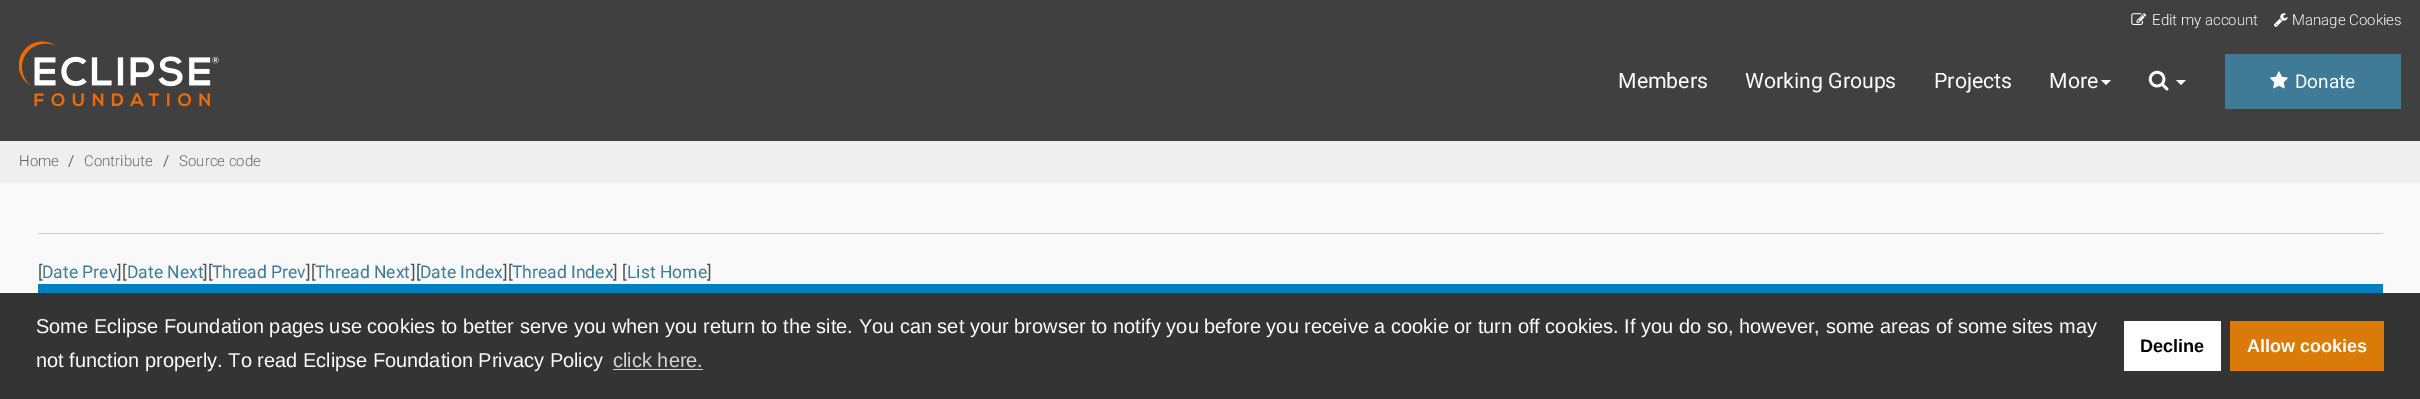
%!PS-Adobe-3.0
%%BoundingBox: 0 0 2420 399
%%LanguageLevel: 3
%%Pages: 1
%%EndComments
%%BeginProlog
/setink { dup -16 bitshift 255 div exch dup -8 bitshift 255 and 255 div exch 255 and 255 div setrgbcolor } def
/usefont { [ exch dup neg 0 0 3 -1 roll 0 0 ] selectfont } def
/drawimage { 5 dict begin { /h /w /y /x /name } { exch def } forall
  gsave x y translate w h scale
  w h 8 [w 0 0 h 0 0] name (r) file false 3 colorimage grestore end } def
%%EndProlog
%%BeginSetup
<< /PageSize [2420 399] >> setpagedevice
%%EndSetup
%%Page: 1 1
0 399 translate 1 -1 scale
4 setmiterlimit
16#F9F9F9 setink
0 0 2420 399 rectfill
16#404040 setink
0 0 2420 141 rectfill
(img1.raw) 2131 13 16 12 drawimage
/Roboto-Light 15 usefont
16#FFFFFF setink
2152 25 moveto (Edit my account) show
(img2.raw) 2274 13 14 14 drawimage
2292 25 moveto (Manage Cookies) show
(img3.raw) 19 41 200 65 drawimage
/Roboto-Regular 21.25 usefont
[
    [(Members) 1618 88]
    [(Working Groups) 1745 88]
    [(Projects) 1934 88]
    [(More) 2049 88]
] { aload pop moveto show } forall
2101 80 moveto 2111 80 lineto 2106 85 lineto closepath fill
(img4.raw) 2148 70 21 21 drawimage
2176 80 moveto 2186 80 lineto 2181 85 lineto closepath fill
16#3F7B96 setink
2225 54 176 55 rectfill
(img5.raw) 2270 71 18 18 drawimage
/Roboto-Regular 19 usefont
16#FFFFFF setink
2295 88 moveto (Donate) show
16#EFEFEF setink
0 141 2420 42 rectfill
/Roboto-Light 15 usefont
16#656668 setink
19 166 moveto (Home) show
/Roboto-Regular 15 usefont
68 166 moveto (/) show
/Roboto-Light 15 usefont
84 166 moveto (Contribute) show
/Roboto-Regular 15 usefont
163 166 moveto (/) show
/Roboto-Light 15 usefont
179 166 moveto (Source code) show
16#CCCCCC setink
38 233 2345 1 rectfill
/Roboto-Regular 17.5 usefont
16#4C4D4E setink
38 278 moveto ([) show
16#3F7B96 setink
42 278 moveto (Date Prev) show
16#4C4D4E setink
117 278 moveto (][) show
16#3F7B96 setink
127 278 moveto (Date Next) show
16#4C4D4E setink
203 278 moveto (][) show
16#3F7B96 setink
212 278 moveto (Thread Prev) show
16#4C4D4E setink
306 278 moveto (][) show
16#3F7B96 setink
315 278 moveto (Thread Next) show
16#4C4D4E setink
411 278 moveto (][) show
16#3F7B96 setink
420 278 moveto (Date Index) show
16#4C4D4E setink
503 278 moveto (][) show
16#3F7B96 setink
512 278 moveto (Thread Index) show
16#4C4D4E setink
613 278 moveto (] [) show
16#3F7B96 setink
627 278 moveto (List Home) show
16#4C4D4E setink
707 278 moveto (]) show
16#0080C0 setink
38 284 2345 9 rectfill
16#353434 setink
0 293 2420 106 rectfill
/LiberationSans-Regular 20 usefont
16#FFFFFF setink
36 333 moveto (Some Eclipse Foundation pages use cookies to better serve you when you return to the site. You can set your browser to notify you before you receive a cookie or turn off cookies. If you do so, however, some areas of some sites may) show
36 367 moveto (not function properly. To read Eclipse Foundation Privacy Policy) show
16#D7D6D6 setink
613 367 moveto (click here.) show
613 369 90 1 rectfill
16#FFFFFF setink
2124 321 97 50 rectfill
/LiberationSans-Bold 18 usefont
16#000000 setink
2140 352 moveto (Decline) show
16#DA7A08 setink
2230 321 154 50 rectfill
16#FFFFFF setink
2247 352 moveto (Allow cookies) show
showpage
%%EOF
